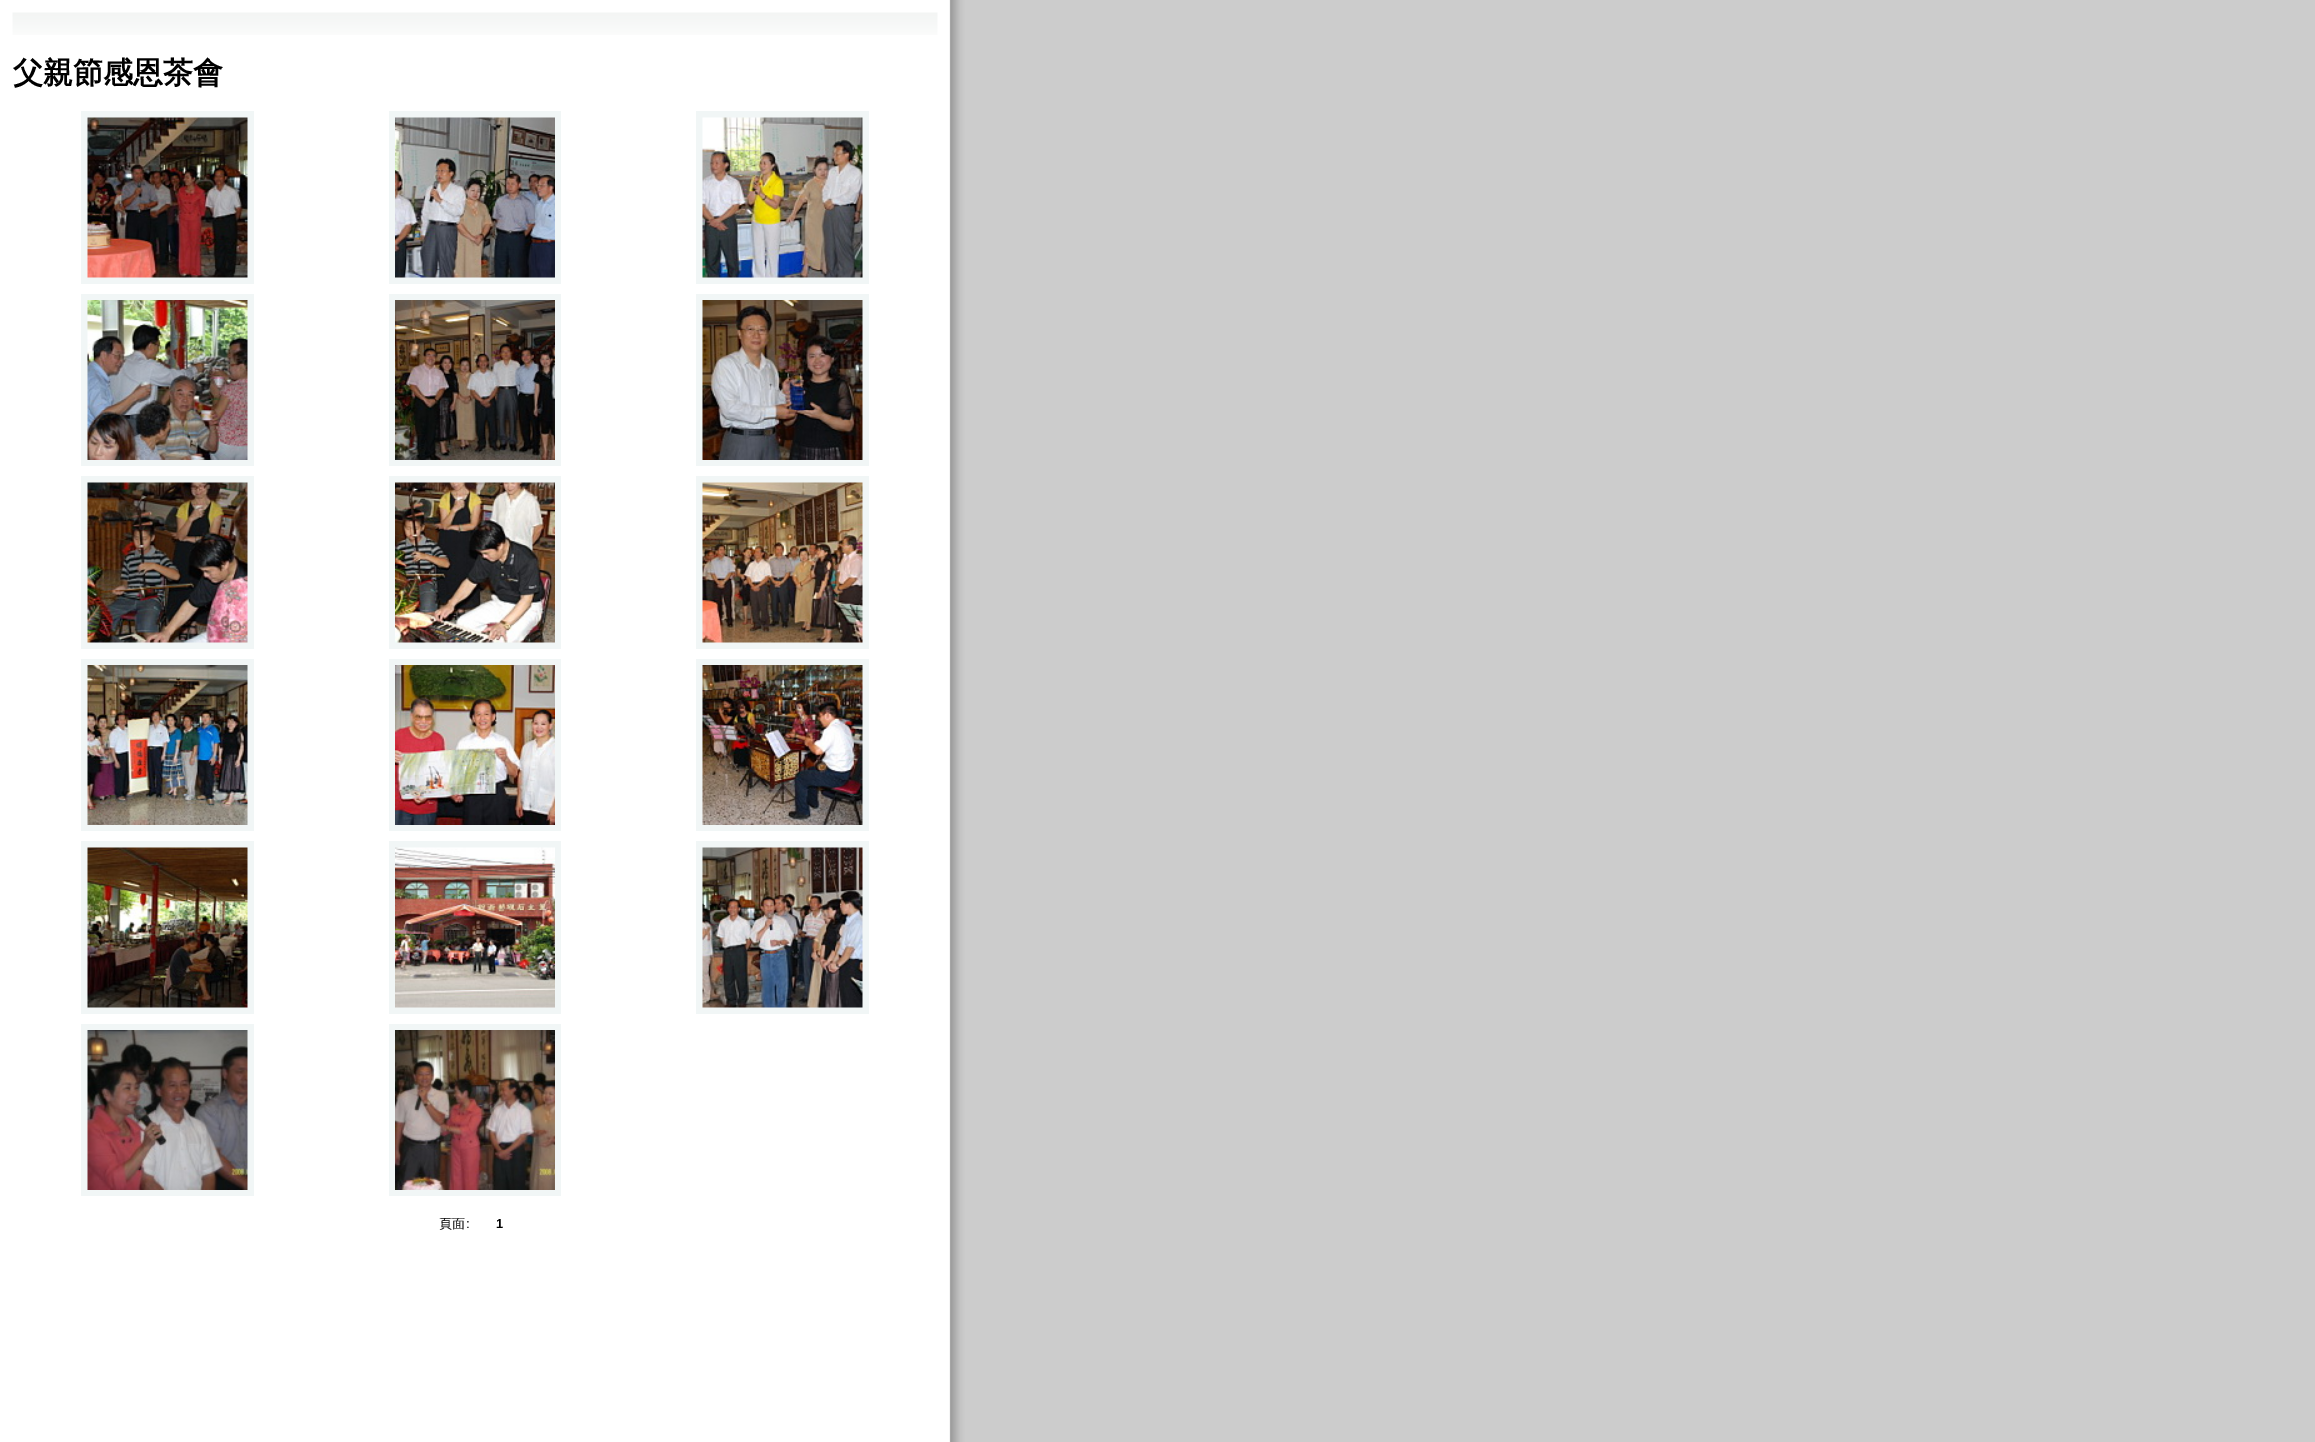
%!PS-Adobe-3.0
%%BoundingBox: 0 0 2315 1442
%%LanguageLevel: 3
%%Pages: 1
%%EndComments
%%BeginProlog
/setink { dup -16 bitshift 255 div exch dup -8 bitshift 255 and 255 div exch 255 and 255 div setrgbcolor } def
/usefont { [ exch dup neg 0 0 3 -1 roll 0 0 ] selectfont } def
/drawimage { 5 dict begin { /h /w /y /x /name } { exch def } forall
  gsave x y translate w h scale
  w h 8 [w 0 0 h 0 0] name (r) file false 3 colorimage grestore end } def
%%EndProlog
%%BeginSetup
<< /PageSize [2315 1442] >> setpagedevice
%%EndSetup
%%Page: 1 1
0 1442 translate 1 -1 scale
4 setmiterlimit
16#FFFFFF setink
0 0 2315 1442 rectfill
(img1.raw) 949 0 1366 1442 drawimage
(img2.raw) 12 12 926 23 drawimage
/WenQuanYiZenHei-Bold 30 usefont
16#000000 setink
13 83 moveto (父親節感恩茶會) show
16#F1F6F6 setink
81 111 173 173 rectfill
(img3.raw) 87 117 161 161 drawimage
389 111 172 173 rectfill
(img4.raw) 395 117 160 161 drawimage
696 111 173 173 rectfill
(img5.raw) 702 117 161 161 drawimage
81 294 173 172 rectfill
(img6.raw) 87 300 161 160 drawimage
389 294 172 172 rectfill
(img7.raw) 395 300 160 160 drawimage
696 294 173 172 rectfill
(img8.raw) 702 300 161 160 drawimage
81 476 173 173 rectfill
(img9.raw) 87 482 161 161 drawimage
389 476 172 173 rectfill
(img10.raw) 395 482 160 161 drawimage
696 476 173 173 rectfill
(img11.raw) 702 482 161 161 drawimage
81 659 173 172 rectfill
(img12.raw) 87 665 161 160 drawimage
389 659 172 172 rectfill
(img13.raw) 395 665 160 160 drawimage
696 659 173 172 rectfill
(img14.raw) 702 665 161 160 drawimage
81 841 173 173 rectfill
(img15.raw) 87 847 161 161 drawimage
389 841 172 173 rectfill
(img16.raw) 395 847 160 161 drawimage
696 841 173 173 rectfill
(img17.raw) 702 847 161 161 drawimage
81 1024 173 172 rectfill
(img18.raw) 87 1030 161 160 drawimage
389 1024 172 172 rectfill
(img19.raw) 395 1030 160 160 drawimage
/WenQuanYiZenHei-Medium 13 usefont
16#000000 setink
439 1228 moveto (頁面) show
/LiberationSans-Regular 13 usefont
466 1228 moveto (:) show
/LiberationSans-Bold 13 usefont
496 1228 moveto (1) show
showpage
%%EOF
